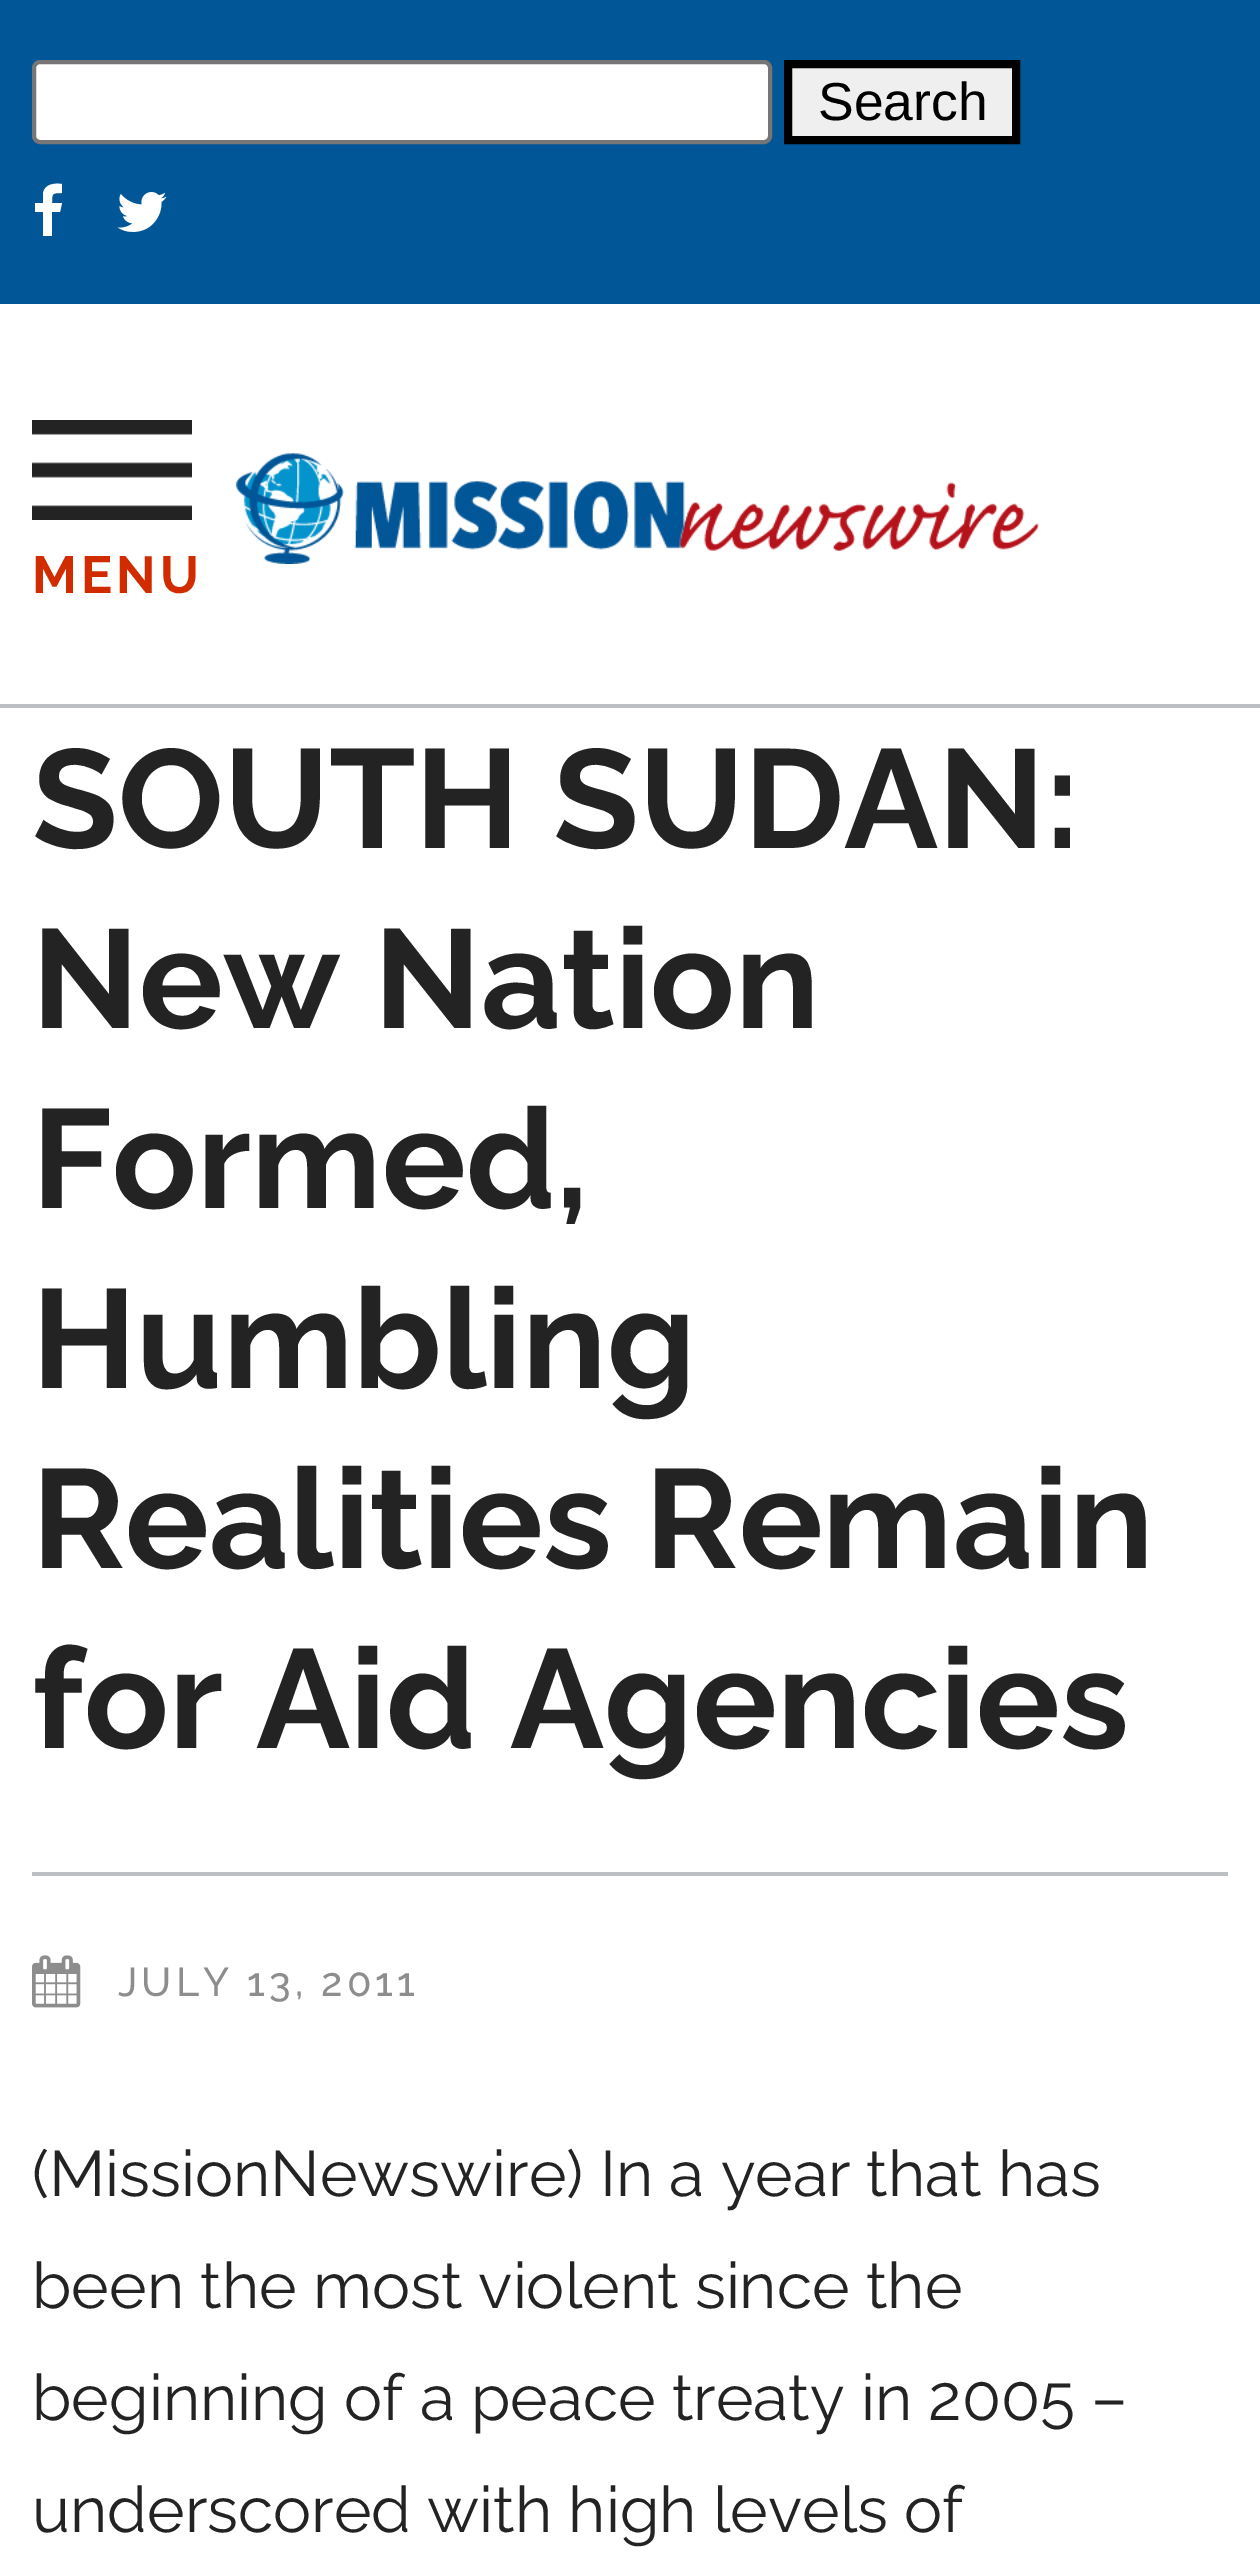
%!PS-Adobe-3.0
%%BoundingBox: 0 0 1260 2568
%%LanguageLevel: 3
%%Pages: 1
%%EndComments
%%BeginProlog
/setink { dup -16 bitshift 255 div exch dup -8 bitshift 255 and 255 div exch 255 and 255 div setrgbcolor } def
/usefont { [ exch dup neg 0 0 3 -1 roll 0 0 ] selectfont } def
/rrect { 5 dict begin { /r /h /w /y /x } { exch def } forall
  x r add y moveto x w add y 2 copy h add r arct x w add y h add x 1 index r arct
  x y h add x y r arct x y 2 copy exch w add exch r arct closepath end } def
/drawimage { 5 dict begin { /h /w /y /x /name } { exch def } forall
  gsave x y translate w h scale
  w h 8 [w 0 0 h 0 0] name (r) file false 3 colorimage grestore end } def
%%EndProlog
%%BeginSetup
<< /PageSize [1260 2568] >> setpagedevice
%%EndSetup
%%Page: 1 1
0 2568 translate 1 -1 scale
4 setmiterlimit
16#FFFFFF setink
0 0 1260 2568 rectfill
16#005696 setink
0 0 1260 304 rectfill
16#FFFFFF setink
34 62 736 80 6 rrect gsave fill grestore
16#767676 setink
4 setlinewidth
stroke
16#EFEFEF setink
788 64 moveto 1016 64 lineto 1016 140 lineto 788 140 lineto closepath gsave fill grestore
16#000000 setink
8 setlinewidth
stroke
/LiberationSans-Regular 53.5 usefont
818 120 moveto (Search) show
16#FFFFFF setink
62 184 moveto 62 193 lineto 52 193 52 193 52 203 curveto 62 203 lineto 60 212 lineto 52 212 lineto 52 236 lineto 43 236 lineto 43 212 lineto 35 212 lineto 35 203 lineto 43 203 lineto 43 193 lineto 45 184 54 183 62 184 curveto closepath fill
(img1.raw) 117 192 50 40 drawimage
16#BCC0C4 setink
0 704 1260 4 rectfill
(img2.raw) 235 453 804 111 drawimage
(img3.raw) 32 420 160 100 drawimage
/Raleway-Bold 52 usefont
16#D12C00 setink
32 593 moveto 4 0 (MENU) ashow
/Raleway-Bold 140 usefont
16#232323 setink
[
    [(SOUTH SUDAN:) 32 848]
    [(New Nation) 32 1028]
    [(Formed,) 32 1208]
    [(Humbling) 32 1388]
    [(Realities Remain) 32 1568]
    [(for Aid Agencies) 32 1748]
] { aload pop moveto show } forall
16#BCC0C4 setink
32 1872 1196 4 rectfill
(img4.raw) 32 1955 49 53 drawimage
/Raleway-Medium 40 usefont
16#8D8D8D setink
118 1996 moveto 4 0 (JULY 13, 2011) ashow
/Raleway-Regular 64 usefont
16#232323 setink
[
    [(\(MissionNewswire\) In a year that has) 32 2196]
    [(been the most violent since the) 32 2308]
    [(beginning of a peace treaty in 2005 –) 32 2420]
    [(underscored with high levels of) 32 2532]
] { aload pop moveto show } forall
showpage
%%EOF
